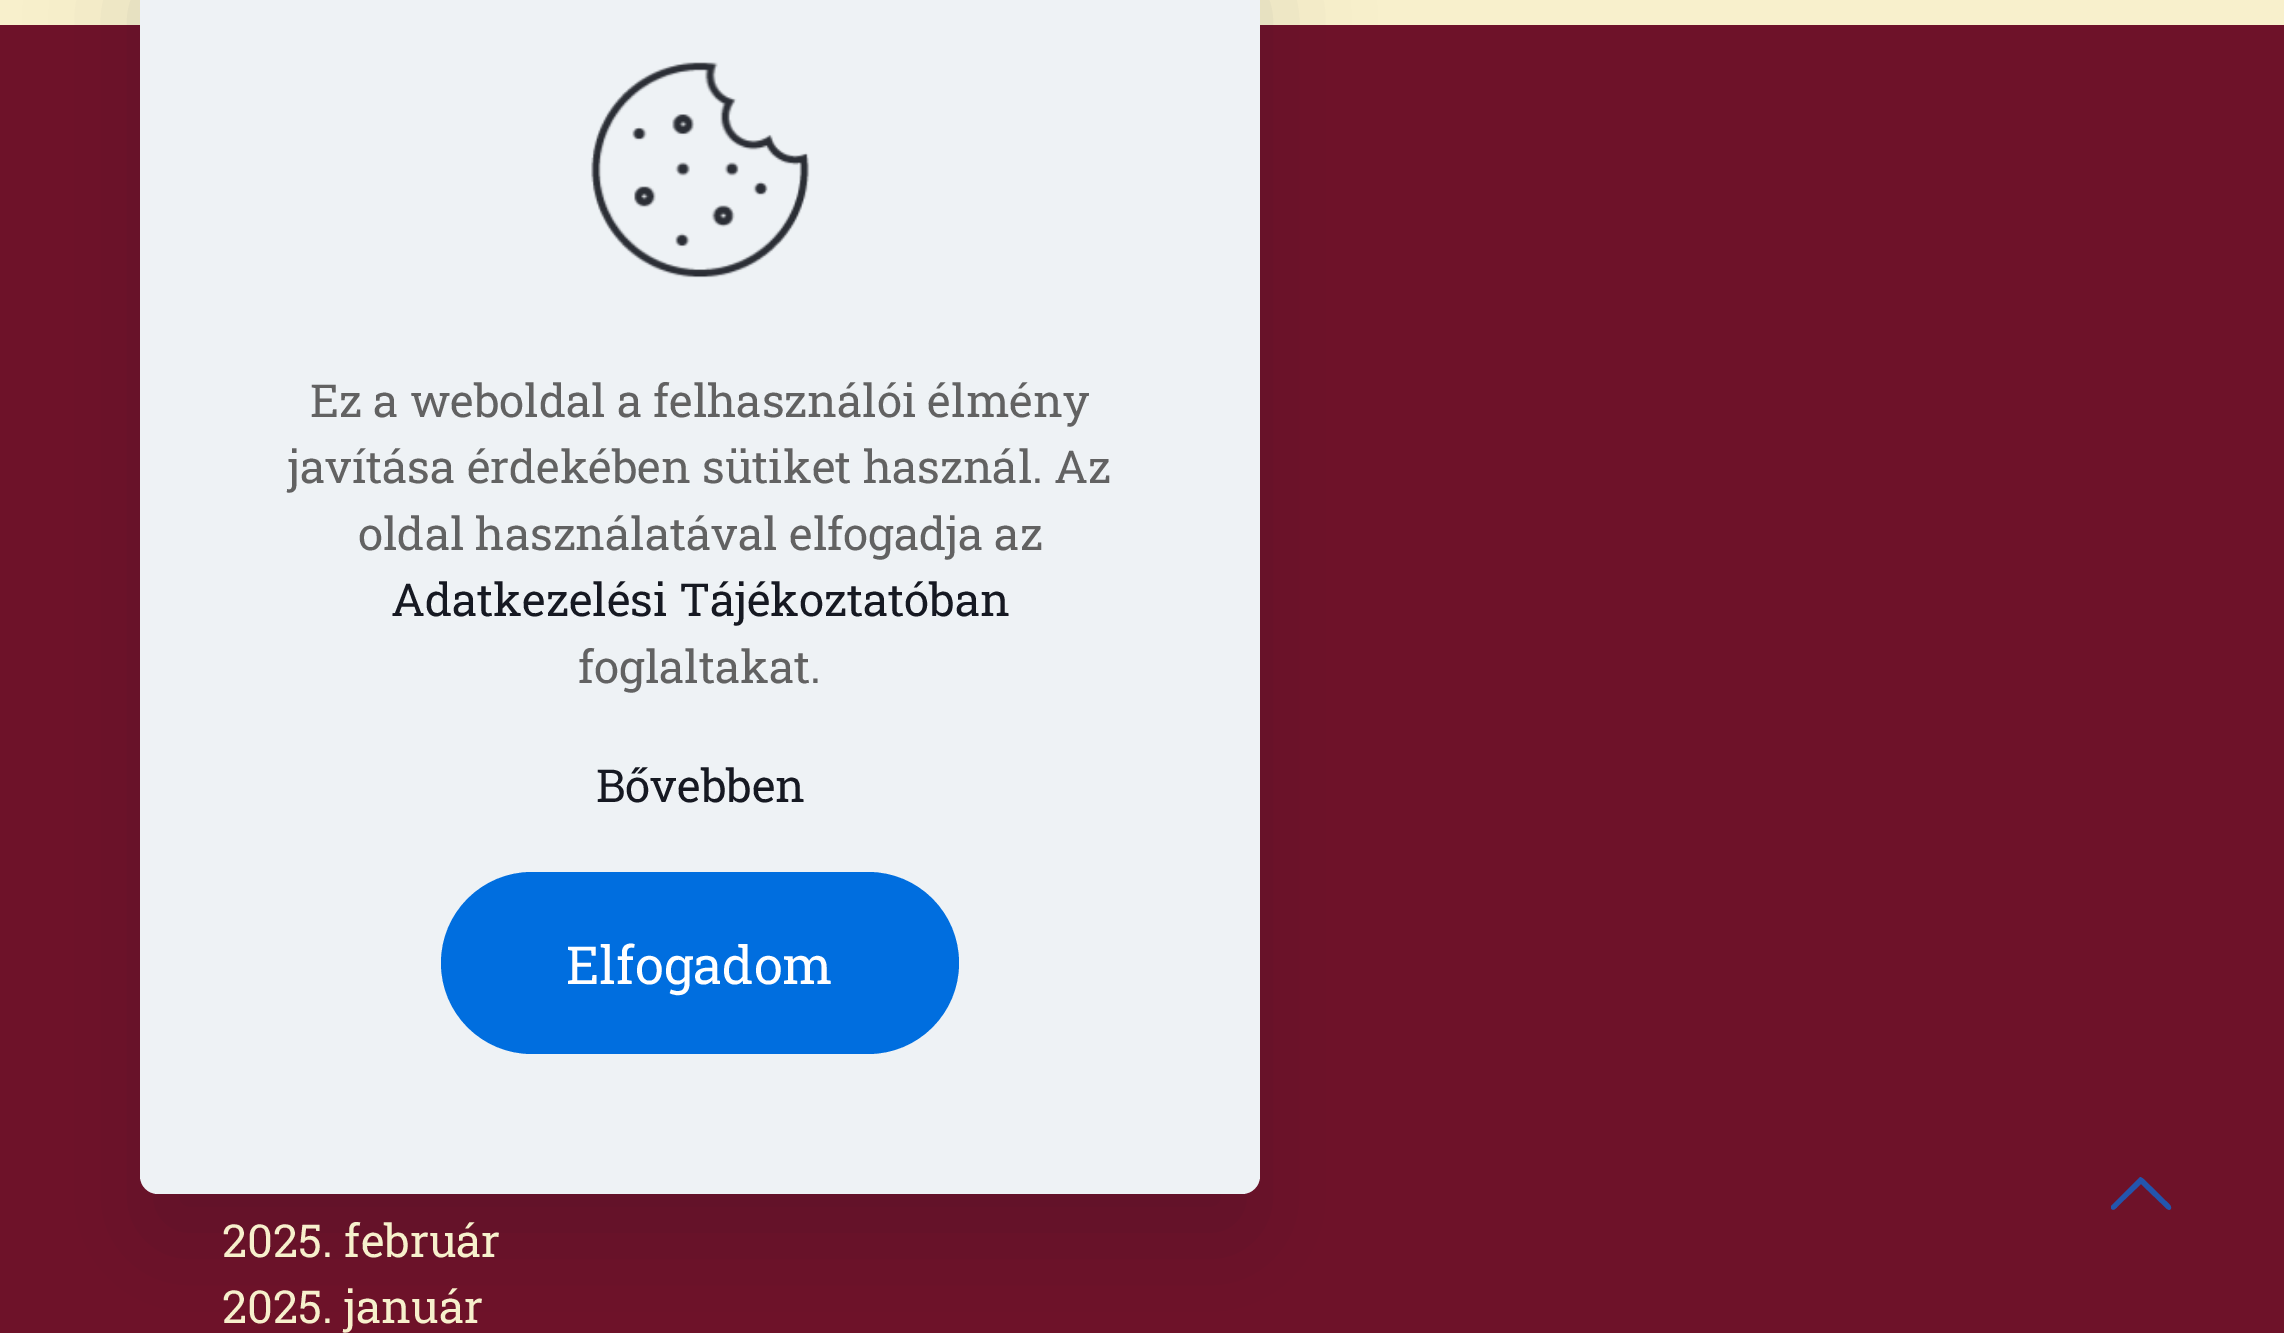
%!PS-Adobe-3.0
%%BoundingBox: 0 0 2284 1333
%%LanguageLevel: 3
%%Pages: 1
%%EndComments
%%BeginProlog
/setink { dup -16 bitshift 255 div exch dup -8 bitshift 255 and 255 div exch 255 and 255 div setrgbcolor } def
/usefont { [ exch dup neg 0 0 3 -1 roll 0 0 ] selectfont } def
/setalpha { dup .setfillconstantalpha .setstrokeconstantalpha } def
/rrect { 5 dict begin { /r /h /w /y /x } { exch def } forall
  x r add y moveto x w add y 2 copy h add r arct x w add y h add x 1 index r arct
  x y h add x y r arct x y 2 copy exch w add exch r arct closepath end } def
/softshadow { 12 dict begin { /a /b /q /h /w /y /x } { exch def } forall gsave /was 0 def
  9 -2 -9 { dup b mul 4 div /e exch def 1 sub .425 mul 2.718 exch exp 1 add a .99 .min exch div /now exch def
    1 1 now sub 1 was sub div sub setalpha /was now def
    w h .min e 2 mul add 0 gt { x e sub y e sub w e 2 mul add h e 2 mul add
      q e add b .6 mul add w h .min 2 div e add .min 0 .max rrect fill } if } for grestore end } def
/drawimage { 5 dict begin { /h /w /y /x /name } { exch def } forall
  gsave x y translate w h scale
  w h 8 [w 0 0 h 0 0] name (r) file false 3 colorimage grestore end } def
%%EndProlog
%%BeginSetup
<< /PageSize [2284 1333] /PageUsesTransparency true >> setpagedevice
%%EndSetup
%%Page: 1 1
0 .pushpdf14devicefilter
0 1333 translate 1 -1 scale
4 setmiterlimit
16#F8F0CC setink
0 0 2284 1333 rectfill
16#6E1229 setink
0 25 2284 1308 rectfill
16#010727 setink
140 -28 1120 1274 18 52.5 0.13 softshadow
16#EEF2F5 setink
140 -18 1120 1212 18 rrect fill
(img1.raw) 591 62 219 216 drawimage
/RobotoSlab-Regular 45.5 usefont
16#626262 setink
[
    [(Ez a weboldal a felhasználói élmény) 310 417]
    [(javítása érdekében sütiket használ. Az) 288 483]
    [(oldal használatával elfogadja az) 358 550]
] { aload pop moveto show } forall
16#161922 setink
391 616 moveto (Adatkezelési Tájékoztatóban) show
16#626262 setink
578 683 moveto (foglaltakat.) show
16#161922 setink
596 802 moveto (Bővebben) show
16#006EDF setink
441 872 518 182 91 rrect fill
/RobotoSlab-Regular 52.5 usefont
16#FFFFFF setink
566 984 moveto (Elfogadom) show
16#2355AD setink
2167 1209 moveto 2141 1184 lineto 2119 1205 lineto 2118 1206 2113 1213 2111 1208 curveto 2111 1206 lineto 2140 1177 lineto 2143 1177 2150 1186 2152 1187 curveto 2166 1201 lineto 2166 1201 2175 1208 2169 1210 curveto closepath fill
/RobotoSlab-Regular 45.5 usefont
16#F7F0CC setink
222 1257 moveto (2025. február) show
222 1323 moveto (2025. január) show
.poppdf14devicefilter showpage
%%EOF
